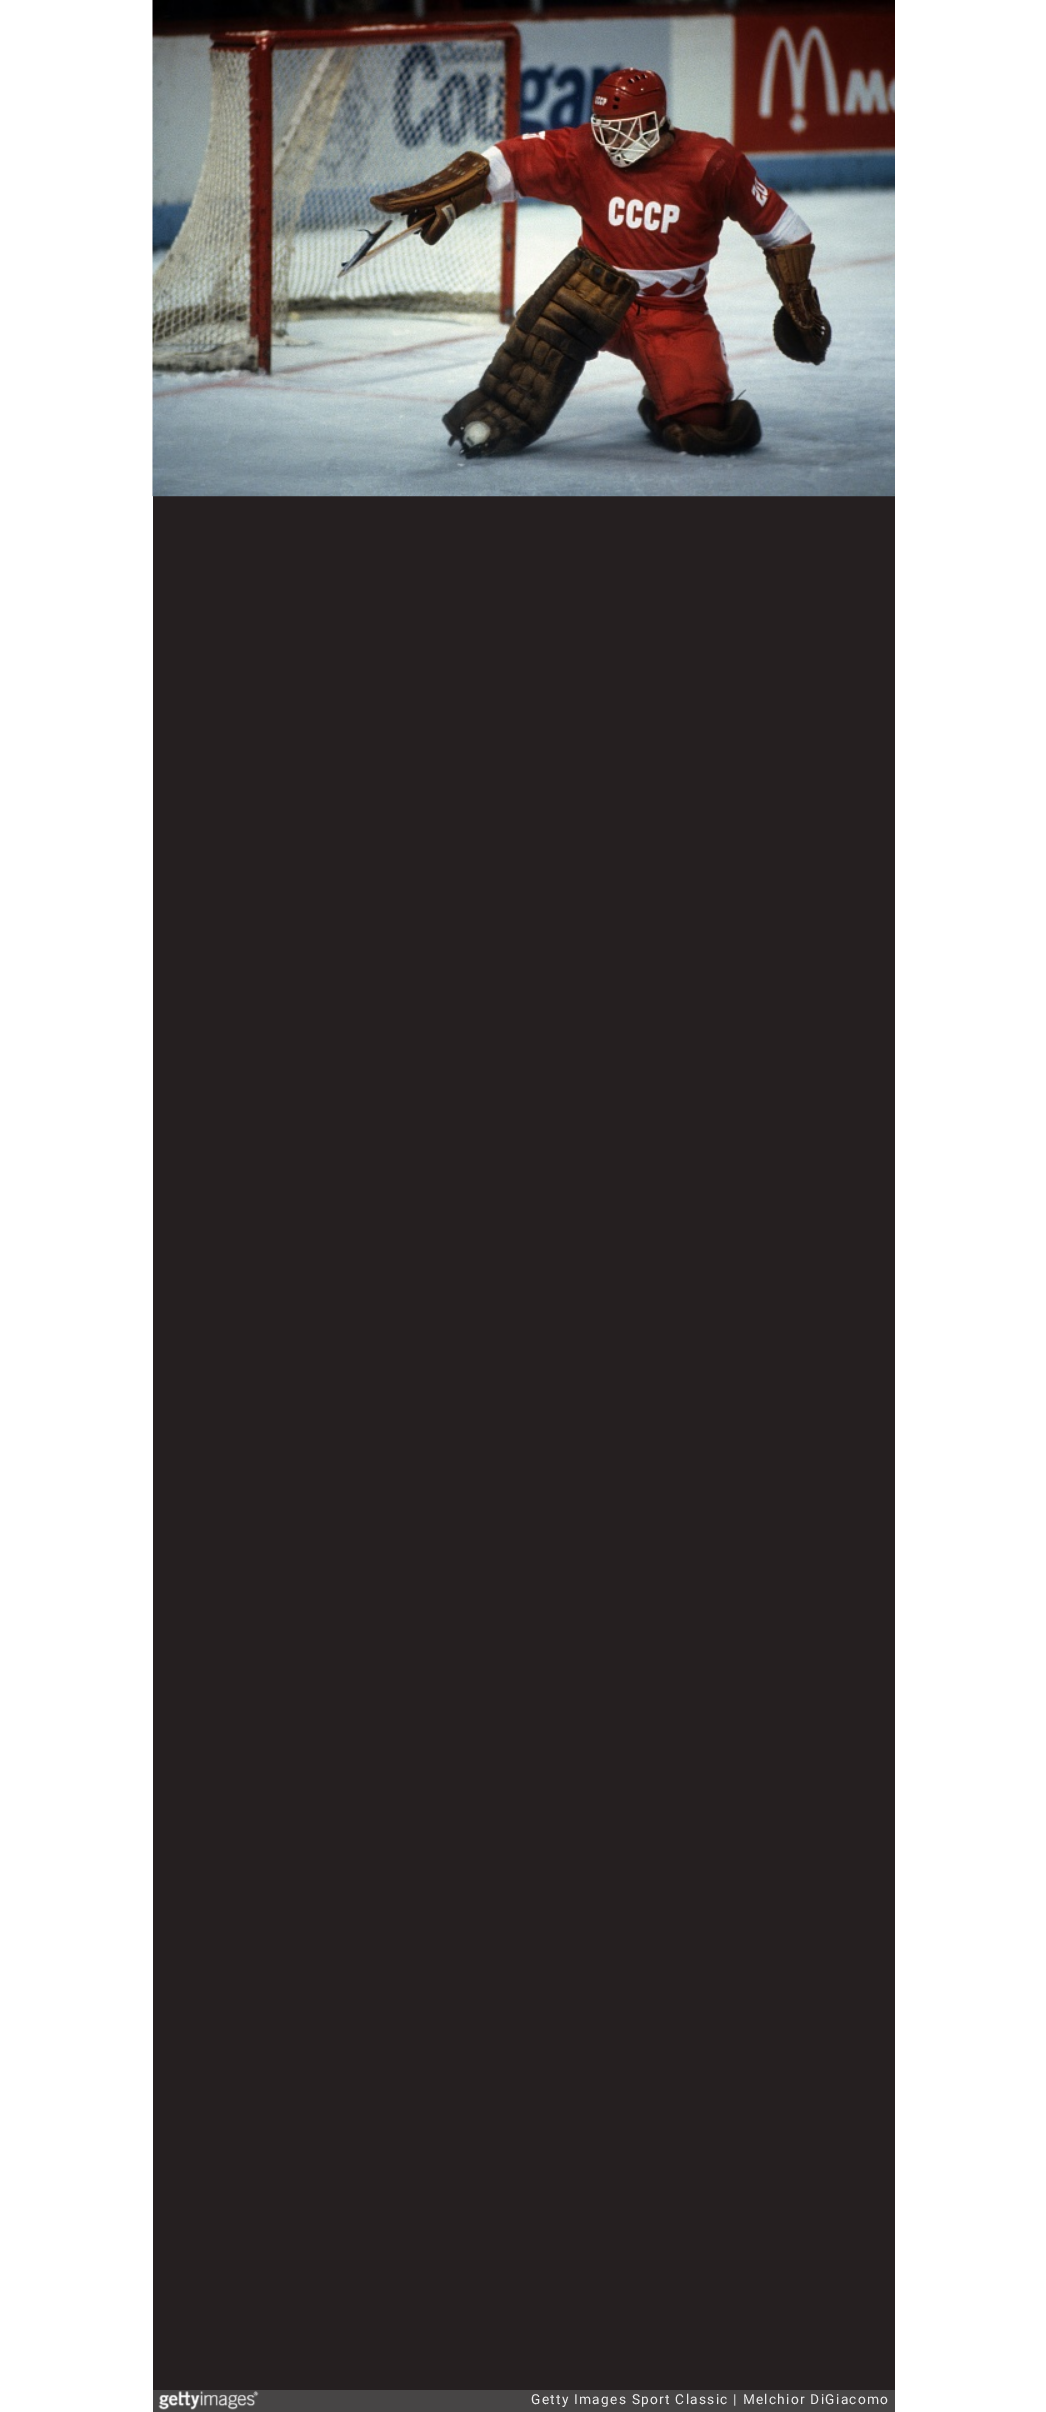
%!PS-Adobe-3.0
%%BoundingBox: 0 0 1046 2412
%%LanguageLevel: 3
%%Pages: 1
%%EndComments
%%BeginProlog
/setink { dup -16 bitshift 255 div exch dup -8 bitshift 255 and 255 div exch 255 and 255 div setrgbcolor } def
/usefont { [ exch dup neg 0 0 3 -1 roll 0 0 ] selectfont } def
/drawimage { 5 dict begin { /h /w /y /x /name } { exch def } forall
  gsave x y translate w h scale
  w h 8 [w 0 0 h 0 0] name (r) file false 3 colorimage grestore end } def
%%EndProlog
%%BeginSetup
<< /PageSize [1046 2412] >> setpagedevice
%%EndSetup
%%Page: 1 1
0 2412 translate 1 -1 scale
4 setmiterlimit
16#FFFFFF setink
0 0 1046 2412 rectfill
16#251F20 setink
153 496 742 1894 rectfill
(img1.raw) 152 0 743 497 drawimage
16#474545 setink
153 2390 742 22 rectfill
(img2.raw) 158 2391 101 19 drawimage
/Roboto-Regular 13.75 usefont
16#EEEEEE setink
531 2404 moveto 1.25 0 (Getty Images Sport Classic | Melchior DiGiacomo) ashow
showpage
%%EOF
